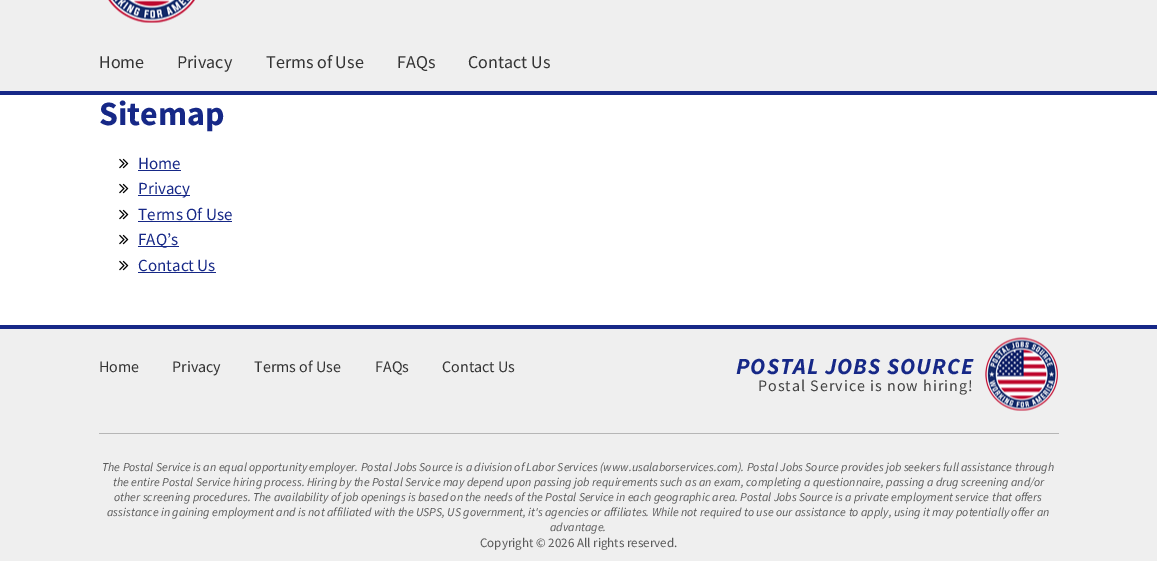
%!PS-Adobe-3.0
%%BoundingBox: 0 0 1157 561
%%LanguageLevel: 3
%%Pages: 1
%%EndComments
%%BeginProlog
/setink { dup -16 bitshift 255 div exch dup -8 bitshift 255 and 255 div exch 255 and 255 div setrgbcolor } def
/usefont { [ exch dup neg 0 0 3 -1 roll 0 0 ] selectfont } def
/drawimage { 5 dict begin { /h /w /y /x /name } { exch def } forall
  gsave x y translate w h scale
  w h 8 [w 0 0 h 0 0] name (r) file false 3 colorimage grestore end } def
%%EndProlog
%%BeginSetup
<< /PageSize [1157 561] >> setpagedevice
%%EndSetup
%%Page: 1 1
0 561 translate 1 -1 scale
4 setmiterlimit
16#FFFFFF setink
0 0 1157 561 rectfill
16#EFEFEF setink
0 0 1157 91 rectfill
16#162887 setink
0 91 1157 4 rectfill
(img1.raw) 108 0 87 23 drawimage
/SourceSansPro-Regular 18 usefont
16#343434 setink
[
    [(Home) 99 68]
    [(Privacy) 177 68]
    [(Terms of Use) 266 68]
    [(FAQs) 397 68]
    [(Contact Us) 468 68]
] { aload pop moveto show } forall
/SourceSansPro-Bold 34 usefont
16#162887 setink
99 125 moveto (Sitemap) show
(img2.raw) 119 158 10 11 drawimage
/SourceSansPro-Regular 17 usefont
138 169 moveto (Home) show
138 170 43 1 rectfill
(img2.raw) 119 183 10 11 drawimage
138 195 52 1 rectfill
138 194 moveto (Privacy) show
(img2.raw) 119 209 10 11 drawimage
138 220 moveto (Terms Of Use) show
138 221 94 1 rectfill
(img2.raw) 119 234 10 11 drawimage
138 246 41 1 rectfill
138 245 moveto (FAQ’s) show
(img2.raw) 119 260 10 11 drawimage
138 271 moveto (Contact Us) show
[
    [138 272 78 1 16#162887]
    [0 329 1157 232 16#EFEFEF]
    [0 325 1157 4 16#162887]
] { aload pop setink rectfill } forall
/SourceSansPro-Regular 16 usefont
16#343434 setink
[
    [(Home) 99 372]
    [(Privacy) 172 372]
    [(Terms of Use) 254 372]
    [(FAQs) 375 372]
    [(Contact Us) 442 372]
] { aload pop moveto show } forall
/SourceSansPro-BoldItalic 23 usefont
16#162887 setink
736 374 moveto 1 0 (POSTAL JOBS SOURCE) ashow
(img3.raw) 985 337 73 74 drawimage
/SourceSansPro-Regular 16 usefont
16#424242 setink
758 391 moveto 1 0 (Postal Service is now hiring!) ashow
16#B6B6B6 setink
99 433 960 1 rectfill
/SourceSansPro-Italic 12 usefont
16#595959 setink
[
    [(The Postal Service is an equal opportunity employer. Postal Jobs Source is a division of Labor Services \(www.usalaborservices.com\). Postal Jobs Source provides job seekers full assistance through) 102 471]
    [(the entire Postal Service hiring process. Hiring by the Postal Service may depend upon passing job requirements such as an exam, completing a questionnaire, passing a drug screening and/or) 113 486]
    [(other screening procedures. The availability of job openings is based on the needs of the Postal Service in each geographic area. Postal Jobs Source is a private employment service that offers) 114 501]
    [(assistance in gaining employment and is not affiliated with the USPS, US government, it's agencies or affiliates. While not required to use our assistance to apply, using it may potentially offer an) 107 516]
    [(advantage.) 550 531]
] { aload pop moveto show } forall
/SourceSansPro-Regular 13 usefont
480 547 moveto (Copyright © 2026 All rights reserved.) show
showpage
%%EOF
